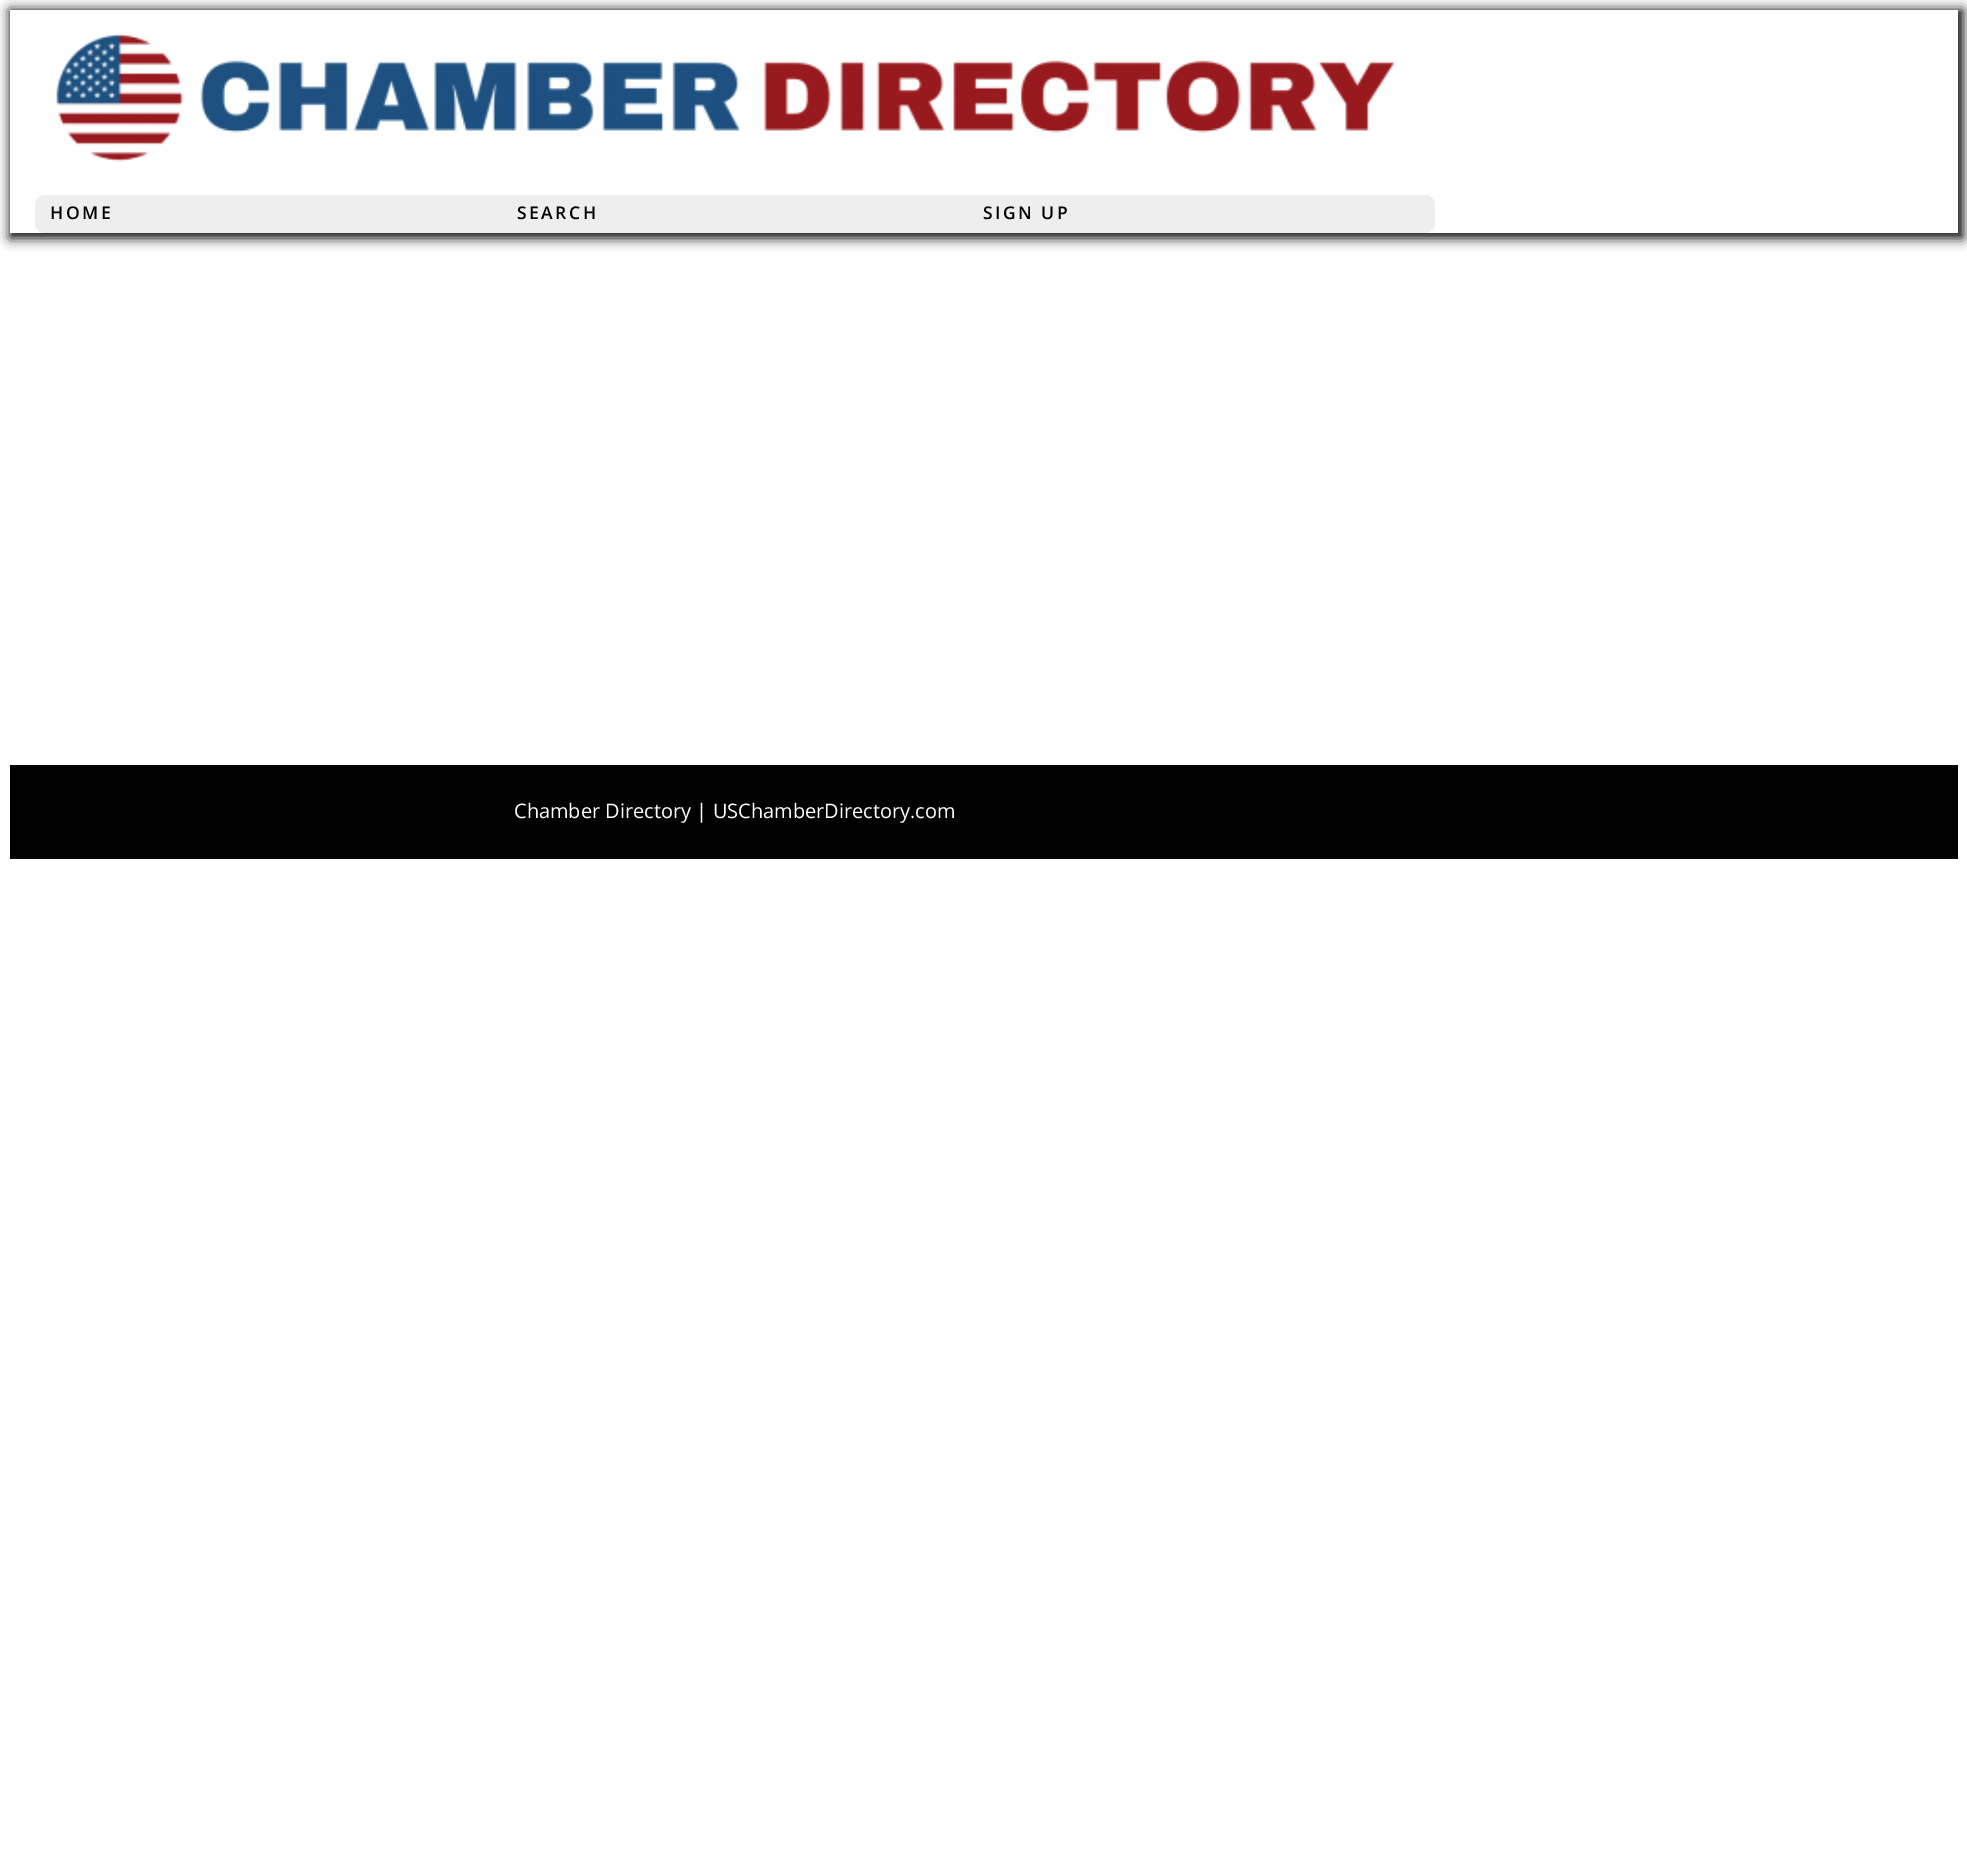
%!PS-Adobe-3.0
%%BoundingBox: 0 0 1967 1856
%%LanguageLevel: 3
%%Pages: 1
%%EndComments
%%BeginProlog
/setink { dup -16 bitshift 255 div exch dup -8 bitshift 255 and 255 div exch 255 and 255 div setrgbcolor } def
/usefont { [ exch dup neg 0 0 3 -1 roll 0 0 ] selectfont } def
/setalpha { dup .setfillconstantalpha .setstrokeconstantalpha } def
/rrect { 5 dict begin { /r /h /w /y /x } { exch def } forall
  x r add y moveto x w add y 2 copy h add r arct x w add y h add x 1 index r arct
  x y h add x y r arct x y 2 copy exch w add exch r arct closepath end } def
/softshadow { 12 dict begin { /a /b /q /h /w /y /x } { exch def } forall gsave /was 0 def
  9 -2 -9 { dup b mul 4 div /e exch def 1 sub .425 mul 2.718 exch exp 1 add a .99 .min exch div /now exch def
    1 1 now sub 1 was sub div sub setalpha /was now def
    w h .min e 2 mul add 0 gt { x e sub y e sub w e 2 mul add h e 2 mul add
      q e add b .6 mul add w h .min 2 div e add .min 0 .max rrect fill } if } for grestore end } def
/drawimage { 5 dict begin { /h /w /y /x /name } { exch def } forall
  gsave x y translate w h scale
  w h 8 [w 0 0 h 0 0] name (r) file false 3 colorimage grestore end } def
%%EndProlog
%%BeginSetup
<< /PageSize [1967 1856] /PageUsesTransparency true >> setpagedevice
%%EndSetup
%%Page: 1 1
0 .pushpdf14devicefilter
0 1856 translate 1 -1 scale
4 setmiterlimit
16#FFFFFF setink
0 0 1967 1856 rectfill
gsave
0 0 moveto 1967 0 lineto 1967 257 lineto 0 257 lineto closepath 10 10 moveto 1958 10 lineto 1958 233 lineto 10 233 lineto closepath eoclip newpath
16#000000 setink
10 10 1953 228 0 6 1 softshadow
grestore
(img1.raw) 55 33 1340 129 drawimage
16#EEEEEE setink
35 195 1400 38 10 rrect fill
/OpenSans-SemiBold 17.5 usefont
16#000000 setink
50 219 moveto 2.5 0 (HOME) ashow
517 219 moveto 2.5 0 (SEARCH) ashow
983 219 moveto 2.5 0 (SIGN UP) ashow
10 765 1948 94 rectfill
/OpenSans-Regular 20 usefont
16#FFFFFF setink
514 818 moveto (Chamber Directory | USChamberDirectory.com) show
.poppdf14devicefilter showpage
%%EOF
